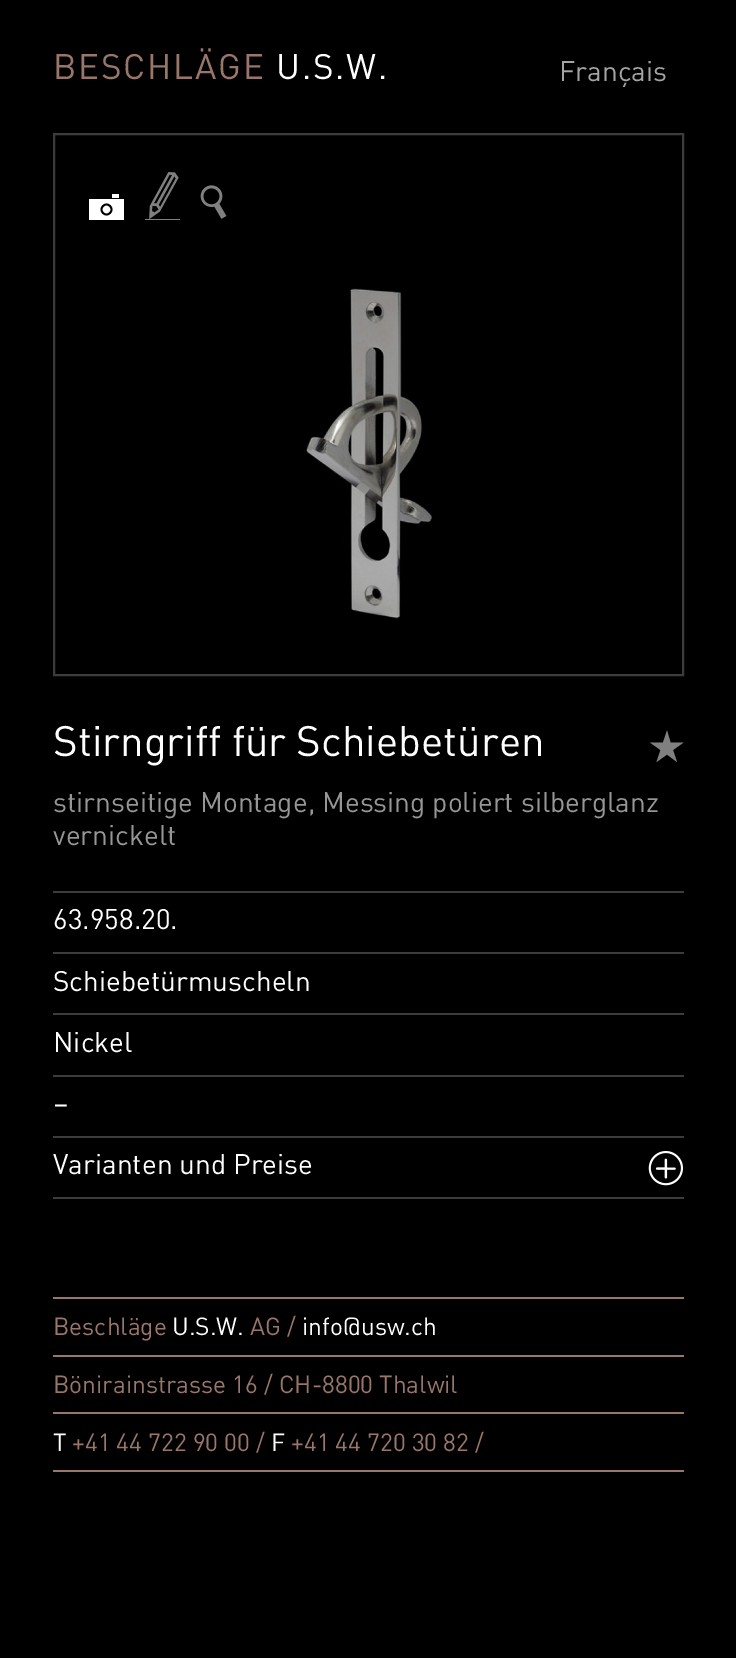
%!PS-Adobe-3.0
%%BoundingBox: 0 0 736 1658
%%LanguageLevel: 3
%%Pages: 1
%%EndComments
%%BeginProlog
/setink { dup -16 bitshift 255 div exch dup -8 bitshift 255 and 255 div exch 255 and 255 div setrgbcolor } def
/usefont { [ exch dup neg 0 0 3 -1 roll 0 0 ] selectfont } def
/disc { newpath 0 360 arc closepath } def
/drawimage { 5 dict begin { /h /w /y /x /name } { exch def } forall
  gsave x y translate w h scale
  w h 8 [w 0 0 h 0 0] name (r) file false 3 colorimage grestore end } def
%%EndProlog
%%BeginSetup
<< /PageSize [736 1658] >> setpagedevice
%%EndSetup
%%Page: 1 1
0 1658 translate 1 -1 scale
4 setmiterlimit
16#000000 setink
0 0 736 1658 rectfill
/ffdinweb-Regular 35 usefont
16#98766A setink
53 79 moveto 1.75 0 (BESCHLÄGE) ashow
16#FFFFFF setink
276 79 moveto 1.75 0 (U.S.W.) ashow
/ffdinweb-Regular 28 usefont
16#A4A4A2 setink
559 81 moveto (Français) show
16#3C3C3C setink
2 setlinewidth
54 134 629 541 rectstroke
16#FFFFFF setink
89 199 35 21 rectfill
112 194 7 4 rectfill
16#000000 setink
1.8 setlinewidth
106.5 209.5 5 disc stroke
(img1.raw) 145 172 35 48 drawimage
(img2.raw) 200 185 27 34 drawimage
(img3.raw) 304 288 128 331 drawimage
/ffdinweb-Regular 42 usefont
16#FFFFFF setink
53 756 moveto (Stirngriff für Schiebetüren) show
16#808080 setink
667 730.5 moveto 670.5 742.5 lineto 683.5 742.5 lineto 673 750 lineto 677 762 lineto 667 754.5 lineto 656.5 762 lineto 660.5 750 lineto 650 742.5 lineto 663 742.5 lineto closepath fill
/ffdinweb-Regular 28 usefont
16#969696 setink
53 812 moveto (stirnseitige Montage, Messing poliert silberglanz) show
53 845 moveto (vernickelt) show
16#3C3C3C setink
53 891 631 2 rectfill
16#FFFFFF setink
53 929 moveto (63.958.20.) show
16#3C3C3C setink
53 952 631 2 rectfill
16#FFFFFF setink
53 991 moveto (Schiebetürmuscheln) show
16#3C3C3C setink
53 1013 631 2 rectfill
16#FFFFFF setink
53 1052 moveto (Nickel) show
16#3C3C3C setink
53 1075 631 2 rectfill
16#FFFFFF setink
53 1113 moveto (–) show
16#3C3C3C setink
53 1136 631 2 rectfill
53 1197 631 2 rectfill
16#FFFFFF setink
53 1174 moveto (Varianten und Preise) show
(img4.raw) 648 1151 35 35 drawimage
16#98766A setink
53 1297 631 2 rectfill
53 1355 631 2 rectfill
/ffdinweb-Regular 24.5 usefont
53 1335 moveto (Beschläge) show
16#FFFFFF setink
172 1335 moveto (U.S.W.) show
16#98766A setink
250 1335 moveto (AG /) show
16#FFFFFF setink
302 1335 moveto (info@usw.ch) show
16#98766A setink
53 1412 631 2 rectfill
53 1393 moveto (Bönirainstrasse 16 / CH-8800 Thalwil) show
53 1470 631 2 rectfill
16#FFFFFF setink
53 1451 moveto (T) show
16#98766A setink
72 1451 moveto (+41 44 722 90 00 /) show
16#FFFFFF setink
271 1451 moveto (F) show
16#98766A setink
291 1451 moveto (+41 44 720 30 82 /) show
showpage
%%EOF
